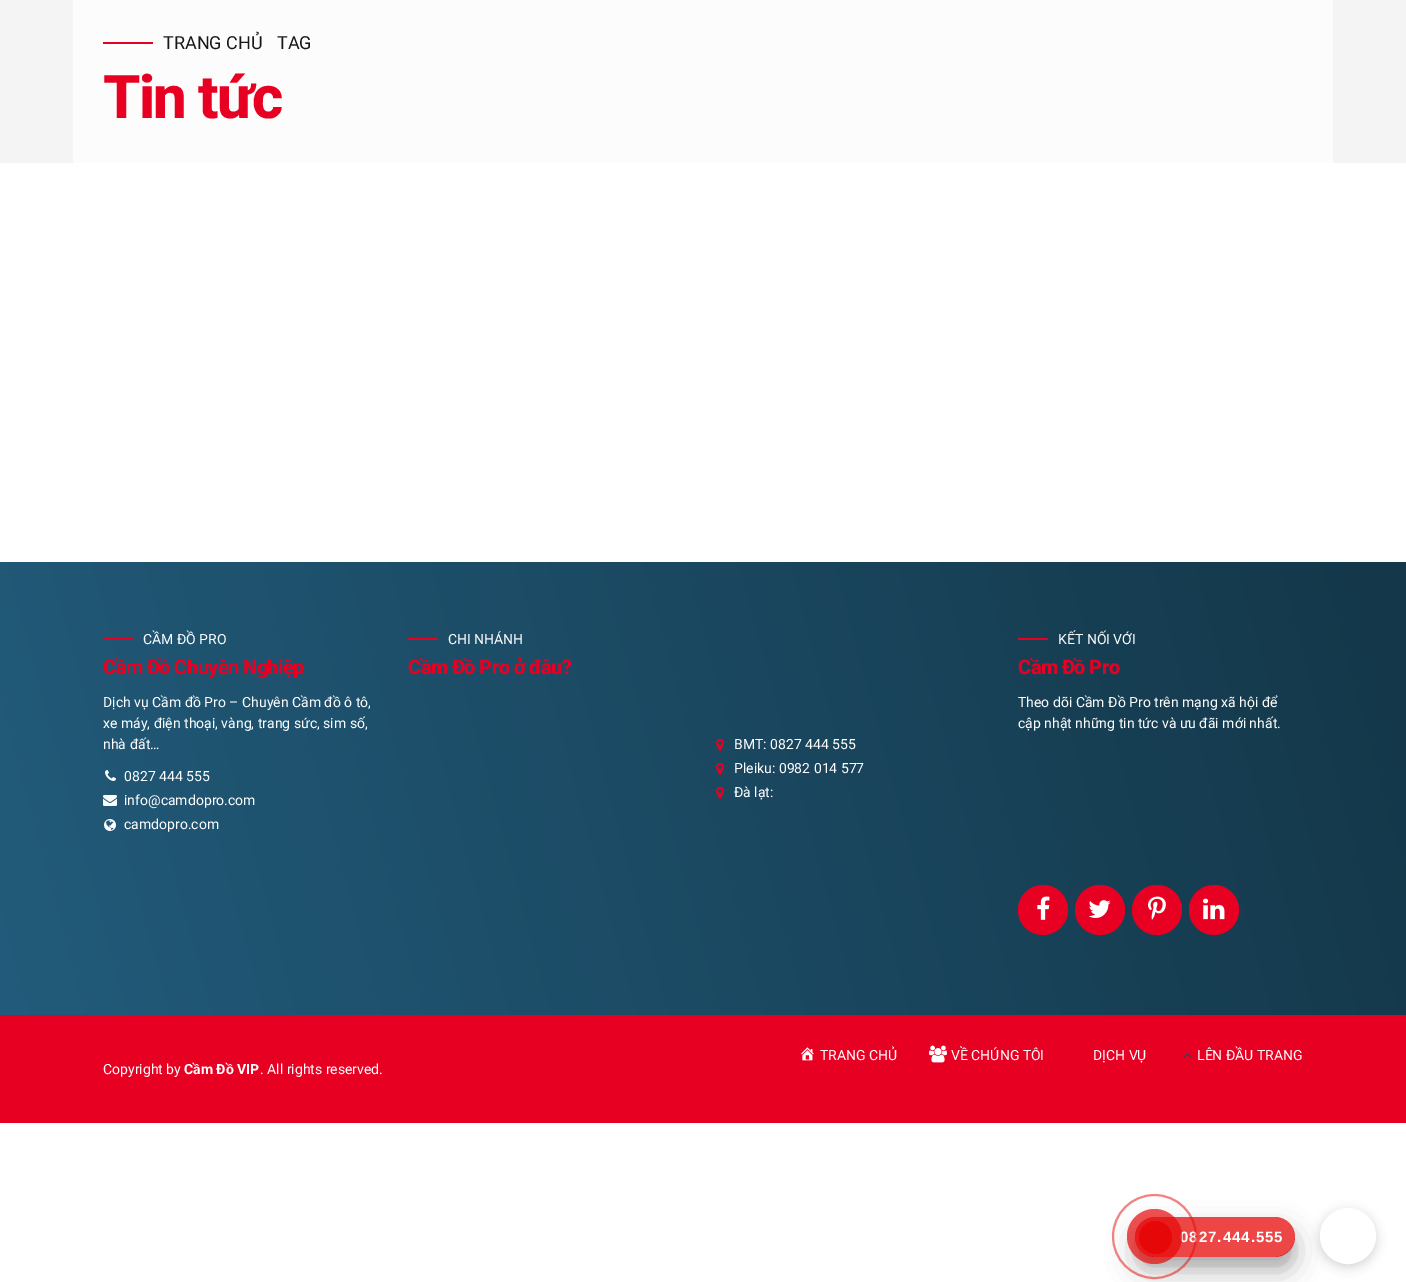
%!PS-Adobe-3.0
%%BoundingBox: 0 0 1406 1282
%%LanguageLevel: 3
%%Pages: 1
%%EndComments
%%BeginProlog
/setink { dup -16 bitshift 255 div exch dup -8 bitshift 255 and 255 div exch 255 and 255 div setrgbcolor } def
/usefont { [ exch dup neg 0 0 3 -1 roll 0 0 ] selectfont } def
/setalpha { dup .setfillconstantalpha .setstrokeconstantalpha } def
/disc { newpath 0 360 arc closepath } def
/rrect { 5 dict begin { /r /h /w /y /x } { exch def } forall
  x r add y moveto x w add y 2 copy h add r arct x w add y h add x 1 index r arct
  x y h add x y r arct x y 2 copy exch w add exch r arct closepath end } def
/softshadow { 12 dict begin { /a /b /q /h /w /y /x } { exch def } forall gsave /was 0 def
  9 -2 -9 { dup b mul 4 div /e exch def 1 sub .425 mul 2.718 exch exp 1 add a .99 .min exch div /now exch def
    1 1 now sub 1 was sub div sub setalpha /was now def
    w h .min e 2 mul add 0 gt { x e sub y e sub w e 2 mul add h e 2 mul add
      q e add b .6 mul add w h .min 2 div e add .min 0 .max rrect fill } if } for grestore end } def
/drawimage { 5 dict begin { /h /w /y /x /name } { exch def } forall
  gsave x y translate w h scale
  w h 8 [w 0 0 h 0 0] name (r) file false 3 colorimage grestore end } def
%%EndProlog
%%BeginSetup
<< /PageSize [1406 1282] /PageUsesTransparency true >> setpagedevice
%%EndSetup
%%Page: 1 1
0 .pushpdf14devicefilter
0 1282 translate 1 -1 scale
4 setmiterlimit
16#FFFFFF setink
0 0 1406 1282 rectfill
[
    [0 0 1406 163 16#F4F4F4]
    [73 0 1260 163 16#FCFCFC]
    [103 42 50 2 16#E80022]
] { aload pop setink rectfill } forall
/Roboto-Regular 18 usefont
16#181818 setink
163 49 moveto (TRANG CHỦ) show
277 49 moveto (TAG) show
/Roboto-ExtraBold 60 usefont
16#E80022 setink
103 118 moveto -1.75 0 (Tin tức) ashow
gsave 0 562 moveto 1406 562 lineto 1406 1015 lineto 0 1015 lineto closepath clip newpath
<< /ShadingType 2 /ColorSpace /DeviceRGB /Coords [-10 979 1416 598] /Extend [true true] /Function << /FunctionType 2 /Domain [0 1] /C0 [0.133 0.357 0.482] /C1 [0.078 0.216 0.286] /N 1 >> >> shfill grestore
103 638 30 2 rectfill
/Roboto-Regular 14 usefont
16#FFFFFF setink
143 644 moveto (CẦM ĐỒ PRO) show
/Roboto-ExtraBold 20 usefont
16#E80022 setink
103 674 moveto -0.6 0 (Cầm Đồ Chuyên Nghiệp) ashow
/Roboto-Regular 14 usefont
16#FFFFFF setink
[
    [(Dịch vụ Cầm đồ Pro – Chuyên Cầm đồ ô tô,) 103 707]
    [(xe máy, điện thoại, vàng, trang sức, sim số,) 103 728]
    [(nhà đất…) 103 749]
] { aload pop moveto show } forall
(img1.raw) 105 770 11 11 drawimage
124 781 moveto (0827 444 555) show
(img2.raw) 103 795 14 11 drawimage
124 805 moveto (info@camdopro.com) show
(img3.raw) 104 819 12 12 drawimage
124 829 moveto (camdopro.com) show
16#E80022 setink
408 638 30 2 rectfill
16#FFFFFF setink
448 644 moveto (CHI NHÁNH) show
/Roboto-ExtraBold 20 usefont
16#E80022 setink
408 674 moveto -0.6 0 (Cầm Đồ Pro ở đâu?) ashow
1018 638 30 2 rectfill
/Roboto-Regular 14 usefont
16#FFFFFF setink
1058 644 moveto (KẾT NỐI VỚI) show
/Roboto-ExtraBold 20 usefont
16#E80022 setink
1018 674 moveto -0.6 0 (Cầm Đồ Pro) ashow
/Roboto-Regular 14 usefont
16#FFFFFF setink
1018 707 moveto (Theo dõi Cầm Đồ Pro trên mạng xã hội để) show
1018 728 moveto (cập nhật những tin tức và ưu đãi mới nhất.) show
16#E80022 setink
1043 910 25 disc fill
(img4.raw) 1037 896 13 24 drawimage
1100 910 25 disc fill
(img5.raw) 1088 900 23 18 drawimage
1157 910 25 disc fill
(img6.raw) 1148 896 18 24 drawimage
1214 910 25 disc fill
(img7.raw) 1203 898 22 22 drawimage
(img8.raw) 716 739 8 12 drawimage
16#FFFFFF setink
734 749 moveto (BMT: 0827 444 555) show
(img9.raw) 716 763 8 12 drawimage
734 773 moveto (Pleiku: 0982 014 577) show
(img10.raw) 716 787 8 12 drawimage
734 797 moveto (Đà lạt:) show
16#E80022 setink
0 1015 1406 108 rectfill
(img11.raw) 801 1047 13 14 drawimage
16#FFFFFF setink
820 1060 moveto (TRANG CHỦ) show
(img12.raw) 929 1045 18 18 drawimage
951 1060 moveto (VỀ CHÚNG TÔI) show
1093 1060 moveto (DỊCH VỤ) show
(img13.raw) 1183 1053 9 5 drawimage
1197 1060 moveto (LÊN ĐẦU TRANG) show
103 1074 moveto (Copyright by) show
/Roboto-Bold 14 usefont
184 1074 moveto (Cầm Đồ VIP) show
/Roboto-Regular 14 usefont
260 1074 moveto (. All rights reserved.) show
gsave
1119 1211 moveto 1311 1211 lineto 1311 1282 lineto 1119 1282 lineto closepath 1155 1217 moveto 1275 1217 lineto 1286 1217 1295 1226 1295 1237 curveto 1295 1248 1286 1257 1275 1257 curveto 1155 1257 lineto 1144 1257 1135 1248 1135 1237 curveto 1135 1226 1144 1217 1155 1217 curveto closepath eoclip newpath
16#000000 setink
1135 1227 160 40 20 5 0.1 softshadow
grestore
gsave
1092 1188 moveto 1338 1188 lineto 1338 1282 lineto 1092 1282 lineto closepath 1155 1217 moveto 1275 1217 lineto 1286 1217 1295 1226 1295 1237 curveto 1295 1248 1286 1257 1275 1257 curveto 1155 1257 lineto 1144 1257 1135 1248 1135 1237 curveto 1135 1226 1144 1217 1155 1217 curveto closepath eoclip newpath
16#000000 setink
1135 1231 160 40 20 14 0.25 softshadow
grestore
0.75 setalpha
16#E60808 setink
1135 1217 160 40 20 rrect fill
/LiberationSans-Bold 15 usefont
1 setalpha
16#FFFFFF setink
1180 1242 moveto 1 0 (0827.444.555) ashow
0.5 setalpha
16#E60808 setink
2 setlinewidth
1154.5 1236.5 41.5 disc stroke
0.7 setalpha
1154.5 1236.5 27.5 disc fill
1 setalpha
1155.5 1237.5 16.5 disc fill
16#000000 setink
1320 1211 56 56 28 5 0.08 softshadow
1320 1211 56 56 28 5 0.08 softshadow
16#FFFFFF setink
1348 1236 25.5 disc gsave fill grestore
5 setlinewidth
stroke
.poppdf14devicefilter showpage
%%EOF
